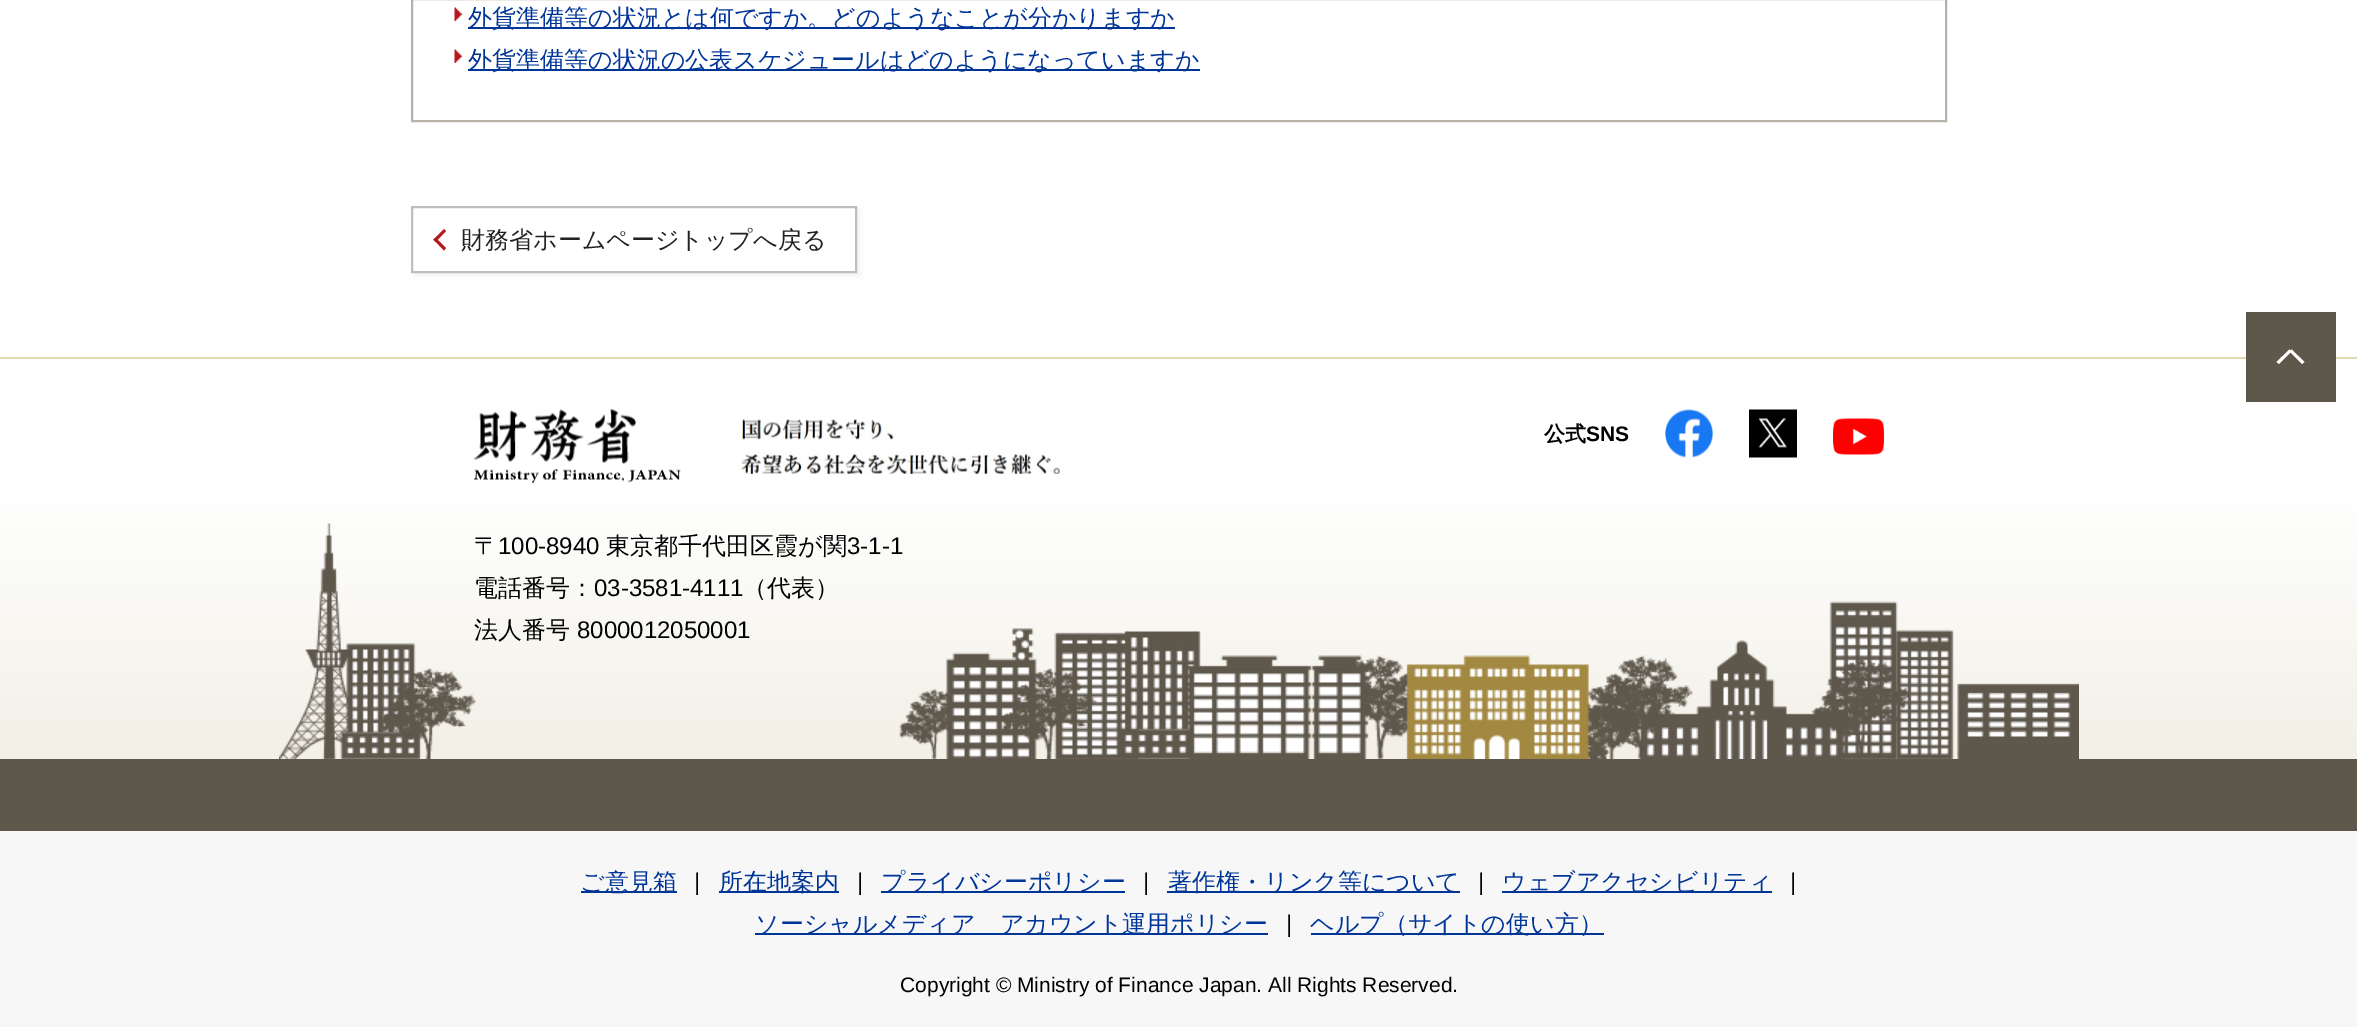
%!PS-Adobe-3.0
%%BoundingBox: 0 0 2357 1027
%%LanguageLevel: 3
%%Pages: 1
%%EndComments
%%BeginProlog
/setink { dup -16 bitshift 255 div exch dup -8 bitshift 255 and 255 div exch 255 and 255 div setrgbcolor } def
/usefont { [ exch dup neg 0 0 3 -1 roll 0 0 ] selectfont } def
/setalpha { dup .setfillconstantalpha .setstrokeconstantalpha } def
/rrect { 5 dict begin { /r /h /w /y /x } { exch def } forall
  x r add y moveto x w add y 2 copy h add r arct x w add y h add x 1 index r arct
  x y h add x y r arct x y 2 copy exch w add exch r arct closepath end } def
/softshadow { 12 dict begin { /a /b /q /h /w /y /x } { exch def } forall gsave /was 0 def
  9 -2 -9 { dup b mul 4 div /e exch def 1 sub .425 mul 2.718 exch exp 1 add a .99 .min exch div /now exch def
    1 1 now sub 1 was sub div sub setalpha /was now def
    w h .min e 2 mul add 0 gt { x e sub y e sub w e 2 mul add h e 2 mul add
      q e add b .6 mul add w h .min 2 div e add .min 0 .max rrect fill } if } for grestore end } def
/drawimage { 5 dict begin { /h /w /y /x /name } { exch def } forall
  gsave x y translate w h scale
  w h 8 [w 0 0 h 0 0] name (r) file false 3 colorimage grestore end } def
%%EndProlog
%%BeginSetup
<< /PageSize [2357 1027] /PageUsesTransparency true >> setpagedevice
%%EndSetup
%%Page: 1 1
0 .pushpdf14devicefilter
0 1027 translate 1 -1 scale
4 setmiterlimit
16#FFFFFF setink
0 0 2357 1027 rectfill
16#B6B2A7 setink
2 setlinewidth
412 -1 1534 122 rectstroke
(img1.raw) 454 7 8 14 drawimage
16#003598 setink
468 27 707 2 rectfill
/WenQuanYiZenHei-Medium 24 usefont
468 26 moveto (外貨準備等の状況とは何ですか。どのようなことが分かりますか) show
(img1.raw) 454 49 8 14 drawimage
468 69 732 2 rectfill
468 68 moveto (外貨準備等の状況の公表スケジュールはどのようになっていますか) show
16#000000 setink
414 209 446 67 0 3 0.06 softshadow
16#FFFFFF setink
412 207 moveto 856 207 lineto 856 272 lineto 412 272 lineto closepath gsave fill grestore
16#BEBEBE setink
stroke
16#B31822 setink
433.5 239.5 moveto 444 229 lineto 446 231 lineto 435.5 242 lineto closepath fill
433.5 239.5 moveto 435.5 237.5 lineto 446 248 lineto 444 250.5 lineto closepath fill
16#222222 setink
461 248 moveto (財務省ホームページトップへ戻る) show
16#F7F7F7 setink
0 831 2357 196 rectfill
(img2.raw) 0 359 2357 400 drawimage
16#E1D8AD setink
0 357 2357 2 rectfill
16#5E574C setink
2246 312 90 90 rectfill
16#FFFFFF setink
2276.5 362 moveto 2289.5 349.5 lineto 2291.5 351.5 lineto 2279 364 lineto closepath fill
2289.5 351.5 moveto 2291.5 349.5 lineto 2304.5 362 lineto 2302 364 lineto closepath fill
/WenQuanYiZenHei-Bold 21 usefont
16#000000 setink
1544 441 moveto (公式) show
/LiberationSans-Bold 21 usefont
1586 441 moveto (SNS) show
(img3.raw) 1665 409 48 49 drawimage
(img4.raw) 1749 409 48 49 drawimage
(img5.raw) 1833 418 51 37 drawimage
(img6.raw) 474 409 162 55 drawimage
(img7.raw) 474 469 207 15 drawimage
(img8.raw) 741 419 319 55 drawimage
/WenQuanYiZenHei-Medium 24 usefont
474 554 moveto (〒) show
/LiberationSans-Regular 24 usefont
498 554 moveto (100-8940) show
/WenQuanYiZenHei-Medium 24 usefont
606 554 moveto (東京都千代田区霞が関) show
/LiberationSans-Regular 24 usefont
847 554 moveto (3-1-1) show
/WenQuanYiZenHei-Medium 24 usefont
474 596 moveto (電話番号：) show
/LiberationSans-Regular 24 usefont
594 596 moveto (03-3581-4111) show
/WenQuanYiZenHei-Medium 24 usefont
743 596 moveto (（代表）) show
474 638 moveto (法人番号) show
/LiberationSans-Regular 24 usefont
577 638 moveto (8000012050001) show
16#5E574C setink
0 759 2357 72 rectfill
16#003598 setink
581 891 96 2 rectfill
/WenQuanYiZenHei-Medium 24 usefont
580 890 moveto (ご意見箱) show
/LiberationSans-Regular 24 usefont
16#000000 setink
694 890 moveto (|) show
16#003598 setink
719 891 120 2 rectfill
/WenQuanYiZenHei-Medium 24 usefont
719 890 moveto (所在地案内) show
/LiberationSans-Regular 24 usefont
16#000000 setink
857 890 moveto (|) show
16#003598 setink
881 891 244 2 rectfill
/WenQuanYiZenHei-Medium 24 usefont
881 890 moveto (プライバシーポリシー) show
/LiberationSans-Regular 24 usefont
16#000000 setink
1143 890 moveto (|) show
16#003598 setink
1167 891 293 2 rectfill
/WenQuanYiZenHei-Medium 24 usefont
1168 890 moveto (著作権・リンク等について) show
/LiberationSans-Regular 24 usefont
16#000000 setink
1478 890 moveto (|) show
16#003598 setink
1502 891 270 2 rectfill
/WenQuanYiZenHei-Medium 24 usefont
1502 890 moveto (ウェブアクセシビリティ) show
/LiberationSans-Regular 24 usefont
16#000000 setink
1790 890 moveto (|) show
16#003598 setink
755 933 513 2 rectfill
/WenQuanYiZenHei-Medium 24 usefont
755 932 moveto (ソーシャルメディア　アカウント運用ポリシー) show
/LiberationSans-Regular 24 usefont
16#000000 setink
1286 932 moveto (|) show
16#003598 setink
1311 933 293 2 rectfill
/WenQuanYiZenHei-Medium 24 usefont
1310 932 moveto (ヘルプ（サイトの使い方）) show
/LiberationSans-Regular 21 usefont
16#000000 setink
900 992 moveto (Copyright © Ministry of Finance Japan. All Rights Reserved.) show
.poppdf14devicefilter showpage
%%EOF
